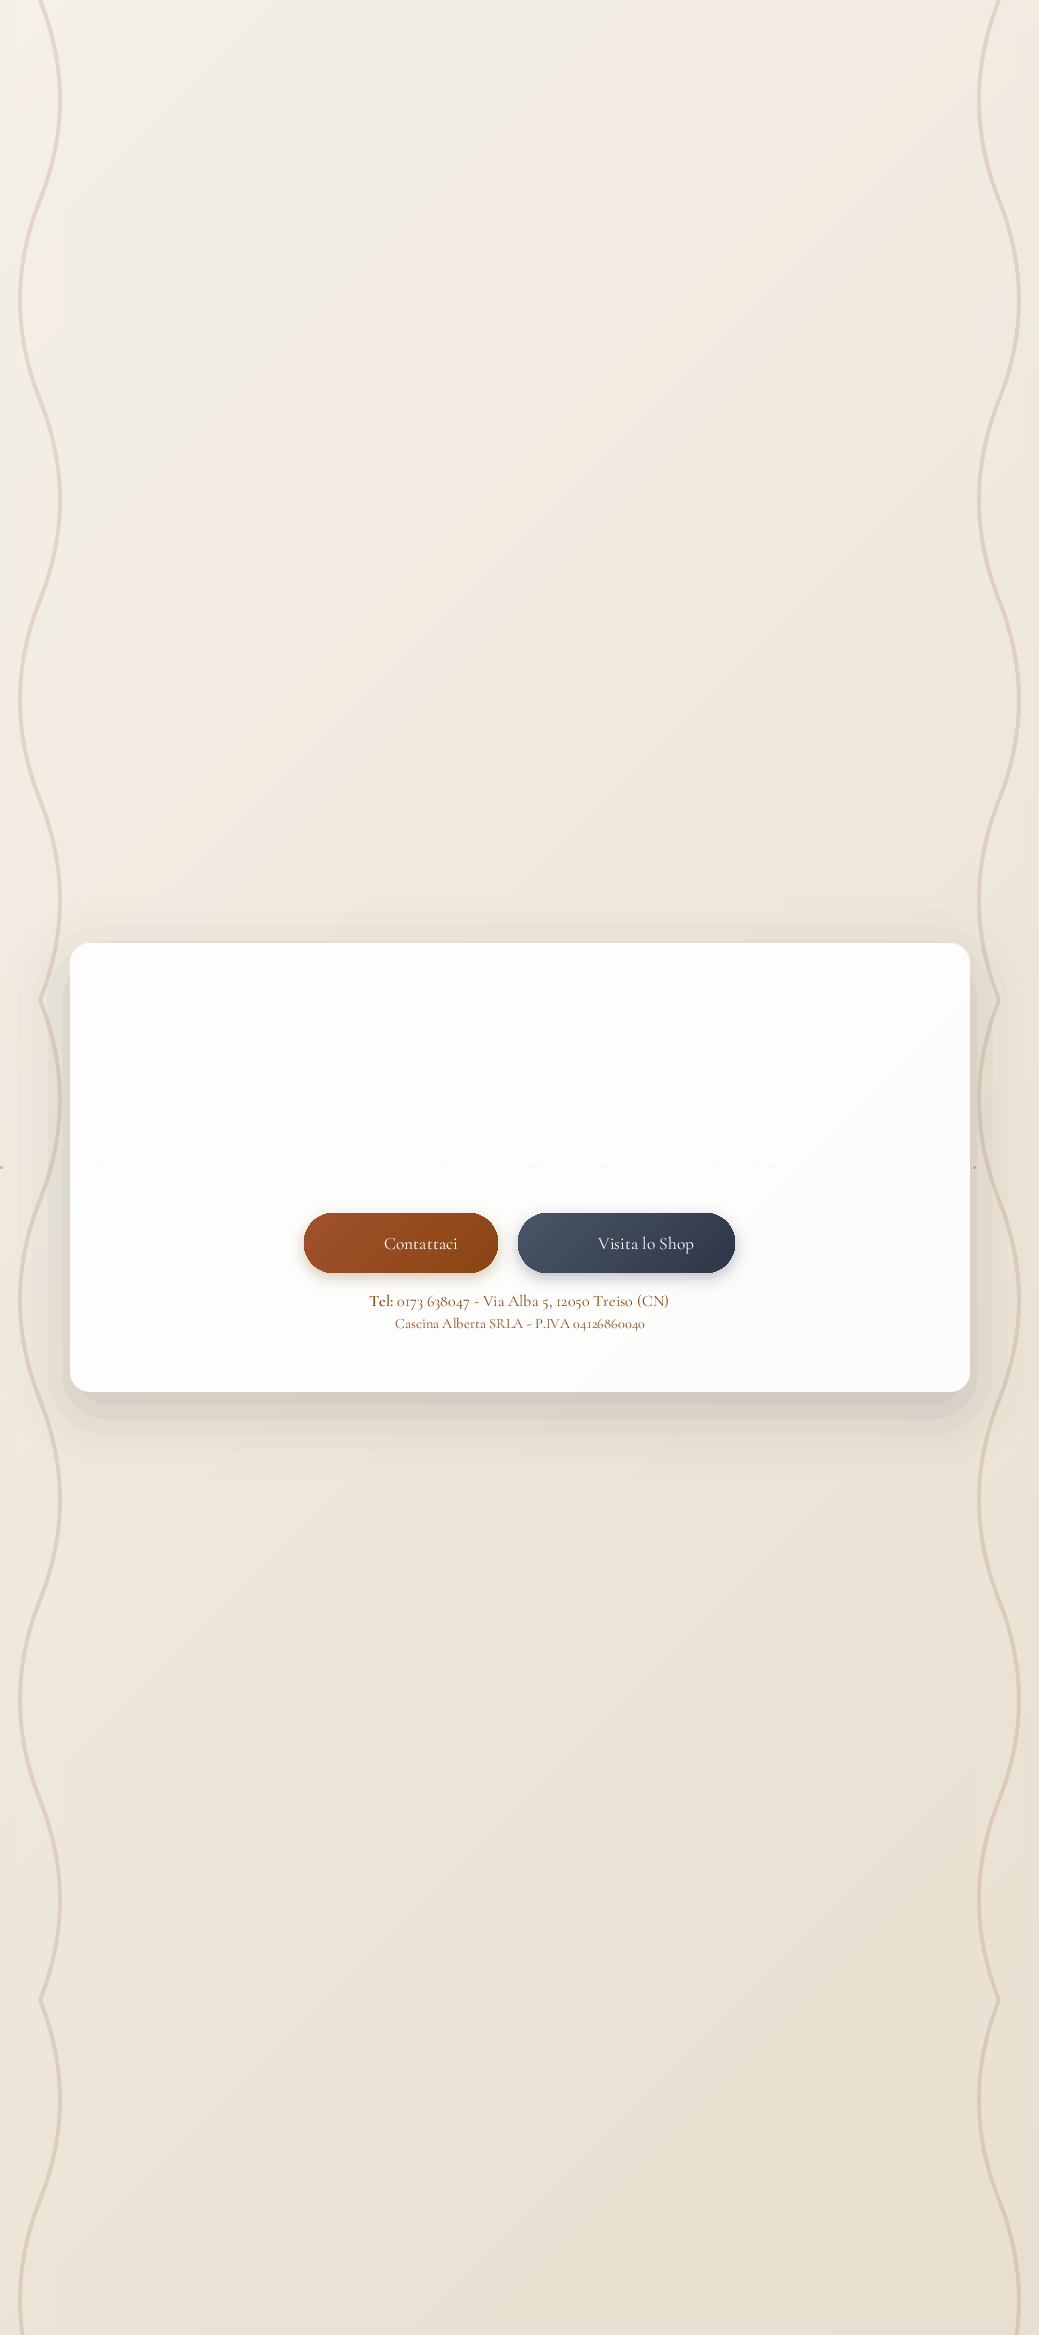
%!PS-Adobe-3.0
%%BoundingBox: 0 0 1039 2335
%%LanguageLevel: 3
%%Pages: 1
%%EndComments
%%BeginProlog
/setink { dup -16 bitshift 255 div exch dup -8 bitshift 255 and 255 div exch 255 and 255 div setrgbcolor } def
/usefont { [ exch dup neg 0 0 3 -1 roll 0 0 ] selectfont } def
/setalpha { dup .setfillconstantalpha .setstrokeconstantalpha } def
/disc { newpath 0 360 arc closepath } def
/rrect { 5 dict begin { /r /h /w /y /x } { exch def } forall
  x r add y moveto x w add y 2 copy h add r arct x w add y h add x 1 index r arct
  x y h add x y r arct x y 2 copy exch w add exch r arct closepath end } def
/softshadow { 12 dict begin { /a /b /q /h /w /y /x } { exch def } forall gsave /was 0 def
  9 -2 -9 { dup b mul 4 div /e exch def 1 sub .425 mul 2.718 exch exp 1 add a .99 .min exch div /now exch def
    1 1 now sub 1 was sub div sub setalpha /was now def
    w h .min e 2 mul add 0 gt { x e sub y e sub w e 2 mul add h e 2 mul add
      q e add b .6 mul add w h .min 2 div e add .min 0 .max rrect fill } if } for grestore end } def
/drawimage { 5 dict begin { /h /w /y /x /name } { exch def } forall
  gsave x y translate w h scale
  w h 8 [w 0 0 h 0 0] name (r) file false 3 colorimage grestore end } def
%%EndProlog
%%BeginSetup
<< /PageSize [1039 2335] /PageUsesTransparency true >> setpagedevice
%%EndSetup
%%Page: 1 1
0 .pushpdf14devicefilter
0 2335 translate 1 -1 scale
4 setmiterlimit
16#FFFFFF setink
0 0 1039 2335 rectfill
gsave 0 0 moveto 1039 0 lineto 1039 2335 lineto 0 2335 lineto closepath clip newpath
<< /ShadingType 2 /ColorSpace /DeviceRGB /Coords [-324 324 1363 2011] /Extend [true true] /Function << /FunctionType 2 /Domain [0 1] /C0 [0.961 0.941 0.91] /C1 [0.91 0.875 0.816] /N 1 >> >> shfill grestore
16#D2B9A3 setink
1.5 1167.5 1.5 disc fill
(img1.raw) 18 0 44 2335 drawimage
16#D2B9A2 setink
98.5 1167.5 1.5 disc fill
16#D1B7A0 setink
444.5 1167.5 1.5 disc fill
16#D0B6A0 setink
533.5 1167.5 1.5 disc fill
536.5 1167.5 1.5 disc fill
(img2.raw) 977 0 44 2335 drawimage
0.3 setalpha
16#8B4513 setink
536.5 1167.5 1.5 disc fill
1 setalpha
16#D0B69F setink
606.5 1167.5 1.5 disc fill
624.5 1167.5 1.5 disc fill
717.5 1167.5 1.5 disc fill
16#D0B69E setink
756.5 1167.5 1.5 disc fill
774.5 1167.5 1.5 disc fill
892.5 1167.5 1.5 disc fill
16#D0B59E setink
927.5 1167.5 1.5 disc fill
938.5 1167.5 1.5 disc fill
974.5 1167.5 1.5 disc fill
gsave
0 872 moveto 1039 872 lineto 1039 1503 lineto 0 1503 lineto closepath 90 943 moveto 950 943 lineto 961 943 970 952 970 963 curveto 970 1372 lineto 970 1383 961 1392 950 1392 curveto 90 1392 lineto 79 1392 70 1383 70 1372 curveto 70 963 lineto 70 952 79 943 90 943 curveto closepath eoclip newpath
16#000000 setink
70 963 900 449 20 30 0.15 softshadow
grestore
0.9 setalpha
16#FFFFFF setink
70 943 900 449 20 rrect fill
1 setalpha
16#8B4513 setink
304 1218 194 60 30 7.5 0.3 softshadow
gsave 304 1213 194 60 30 rrect clip newpath
<< /ShadingType 2 /ColorSpace /DeviceRGB /Coords [338 1180 465 1307] /Extend [true true] /Function << /FunctionType 2 /Domain [0 1] /C0 [0.627 0.322 0.176] /C1 [0.545 0.271 0.075] /N 1 >> >> shfill grestore
/CormorantGaramond-Regular 17.5 usefont
16#FFFFFF setink
384 1249 moveto (Contattaci) show
16#2D3748 setink
518 1218 217 60 30 7.5 0.3 softshadow
gsave 518 1213 217 60 30 rrect clip newpath
<< /ShadingType 2 /ColorSpace /DeviceRGB /Coords [557 1174 696 1312] /Extend [true true] /Function << /FunctionType 2 /Domain [0 1] /C0 [0.29 0.333 0.408] /C1 [0.176 0.216 0.282] /N 1 >> >> shfill grestore
16#FFFFFF setink
598 1249 moveto (Visita lo Shop) show
/CormorantGaramond-SemiBold 16 usefont
16#8B4513 setink
369 1306 moveto (Tel:) show
/CormorantGaramond-Regular 16 usefont
397 1306 moveto (0173 638047 - Via Alba 5, 12050 Treiso \(CN\)) show
/CormorantGaramond-Regular 14.4 usefont
395 1328 moveto (Cascina Alberta SRLA - P.IVA 04126860040) show
.poppdf14devicefilter showpage
%%EOF
